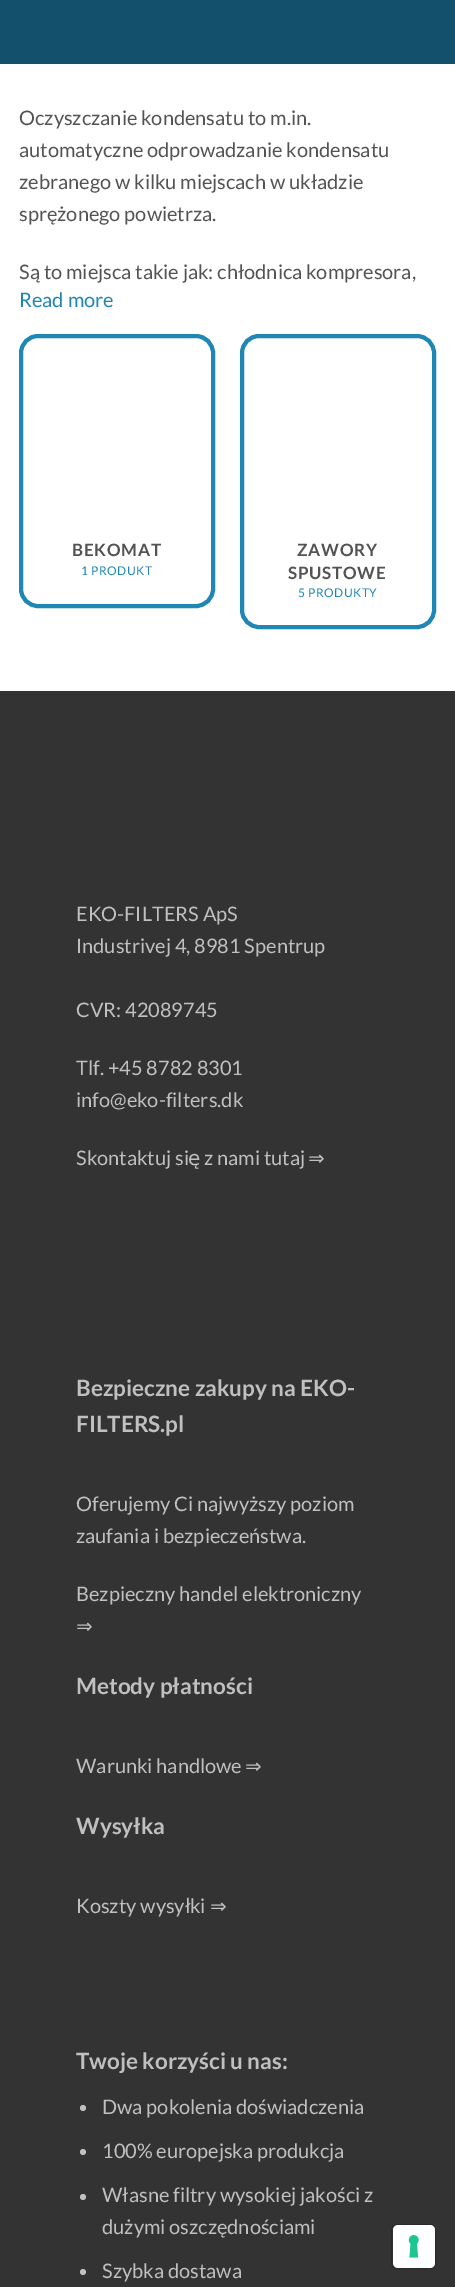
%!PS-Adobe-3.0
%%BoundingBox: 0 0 455 2287
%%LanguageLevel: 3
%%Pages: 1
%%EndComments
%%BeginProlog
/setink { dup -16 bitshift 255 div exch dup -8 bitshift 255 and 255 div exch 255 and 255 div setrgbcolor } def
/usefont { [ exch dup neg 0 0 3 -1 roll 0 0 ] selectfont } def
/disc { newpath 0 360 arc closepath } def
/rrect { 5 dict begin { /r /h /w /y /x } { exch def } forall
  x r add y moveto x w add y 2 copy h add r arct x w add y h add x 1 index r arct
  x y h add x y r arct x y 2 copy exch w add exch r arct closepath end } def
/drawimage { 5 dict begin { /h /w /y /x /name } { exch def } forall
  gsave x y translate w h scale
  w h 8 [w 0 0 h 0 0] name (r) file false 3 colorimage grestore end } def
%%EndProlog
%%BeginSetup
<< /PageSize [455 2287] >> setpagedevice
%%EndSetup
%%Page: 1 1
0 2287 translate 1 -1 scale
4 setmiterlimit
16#FFFFFF setink
0 0 455 2287 rectfill
16#13506B setink
0 0 455 64 rectfill
/Lato-Regular 20 usefont
16#535452 setink
[
    [(Oczyszczanie kondensatu to m.in.) 19 125]
    [(automatyczne odprowadzanie kondensatu) 19 157]
    [(zebranego w kilku miejscach w układzie) 19 189]
    [(sprężonego powietrza.) 19 221]
    [(Są to miejsca takie jak: chłodnica kompresora,) 19 279]
] { aload pop moveto show } forall
16#1F86B3 setink
19 307 moveto (Read more) show
16#1E87B3 setink
4 setlinewidth
21 336 192 270 17 rrect stroke
/Lato-Bold 17 usefont
16#535452 setink
72 556 moveto 0.75 0 (BEKOMAT) ashow
/Lato-Regular 12 usefont
16#1F86B3 setink
81 575 moveto 0.5 0 (1 PRODUKT) ashow
16#1E87B3 setink
242 336 192 291 17 rrect stroke
/Lato-Bold 17 usefont
16#535452 setink
297 556 moveto 0.75 0 (ZAWORY) ashow
288 579 moveto 0.75 0 (SPUSTOWE) ashow
/Lato-Regular 12 usefont
16#1F86B3 setink
298 597 moveto 0.5 0 (5 PRODUKTY) ashow
16#333333 setink
0 691 455 1596 rectfill
/Lato-Regular 20 usefont
16#C0C0C0 setink
[
    [(EKO-FILTERS ApS) 76 921]
    [(Industrivej 4, 8981 Spentrup) 76 953]
    [(CVR: 42089745) 76 1017]
    [(Tlf. +45 8782 8301) 76 1075]
    [(info@eko-filters.dk) 76 1107]
    [(Skontaktuj si) 76 1165]
] { aload pop moveto show } forall
/DejaVuSans-Regular 20 usefont
188 1165 moveto (ę) show
/Lato-Regular 20 usefont
204 1165 moveto (z nami tutaj) show
/DejaVuSans-Regular 20 usefont
308 1165 moveto (⇒) show
/Lato-Bold 22.5 usefont
76 1396 moveto (Bezpieczne zakupy na EKO-) show
76 1432 moveto (FILTERS.pl) show
/Lato-Regular 20 usefont
[
    [(Oferujemy Ci najwyższy poziom) 76 1511]
    [(zaufania i bezpieczeństwa.) 76 1543]
    [(Bezpieczny handel elektroniczny) 76 1601]
] { aload pop moveto show } forall
/DejaVuSans-Regular 20 usefont
76 1633 moveto (⇒) show
/Lato-Bold 22.5 usefont
76 1694 moveto (Metody płatności) show
/Lato-Regular 20 usefont
76 1773 moveto (Warunki handlowe) show
/DejaVuSans-Regular 20 usefont
245 1773 moveto (⇒) show
/Lato-Bold 22.5 usefont
76 1834 moveto (Wysyłka) show
/Lato-Regular 20 usefont
76 1913 moveto (Koszty wysy) show
/DejaVuSans-Regular 20 usefont
185 1913 moveto (ł) show
/Lato-Regular 20 usefont
190 1913 moveto (ki) show
/DejaVuSans-Regular 20 usefont
210 1913 moveto (⇒) show
/Lato-Bold 22.5 usefont
76 2069 moveto (Twoje korzyści u nas:) show
83 2108 3 disc fill
/Lato-Regular 20 usefont
102 2114 moveto (Dwa pokolenia doświadczenia) show
83 2152 3 disc fill
102 2158 moveto (100% europejska produkcja) show
83 2197 3 disc fill
102 2202 moveto (Własne filtry wysokiej jakości z) show
102 2234 moveto (dużymi oszczędnościami) show
83 2272 3 disc fill
102 2278 moveto (Szybka dostawa) show
16#2B2B2B setink
1 setlinewidth
391.5 2224.5 44 44 5.5 rrect stroke
16#FFFFFF setink
393 2225 42 43 5 rrect fill
(img1.raw) 408 2235 11 23 drawimage
showpage
%%EOF
